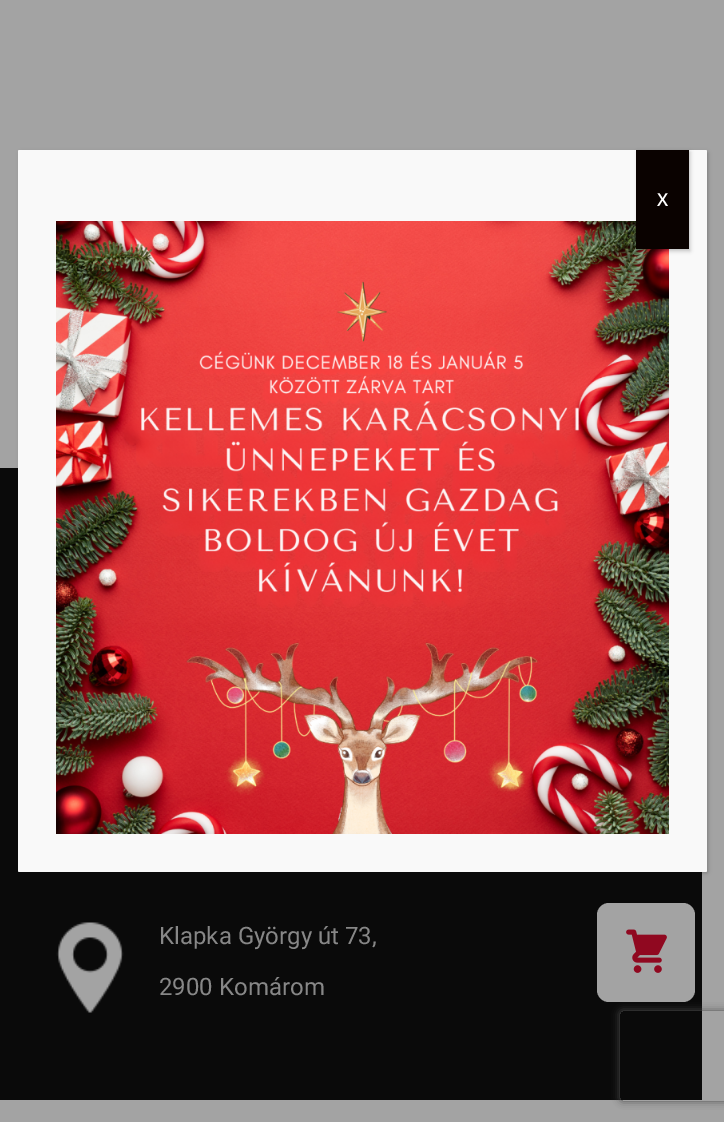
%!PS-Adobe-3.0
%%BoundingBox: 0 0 724 1122
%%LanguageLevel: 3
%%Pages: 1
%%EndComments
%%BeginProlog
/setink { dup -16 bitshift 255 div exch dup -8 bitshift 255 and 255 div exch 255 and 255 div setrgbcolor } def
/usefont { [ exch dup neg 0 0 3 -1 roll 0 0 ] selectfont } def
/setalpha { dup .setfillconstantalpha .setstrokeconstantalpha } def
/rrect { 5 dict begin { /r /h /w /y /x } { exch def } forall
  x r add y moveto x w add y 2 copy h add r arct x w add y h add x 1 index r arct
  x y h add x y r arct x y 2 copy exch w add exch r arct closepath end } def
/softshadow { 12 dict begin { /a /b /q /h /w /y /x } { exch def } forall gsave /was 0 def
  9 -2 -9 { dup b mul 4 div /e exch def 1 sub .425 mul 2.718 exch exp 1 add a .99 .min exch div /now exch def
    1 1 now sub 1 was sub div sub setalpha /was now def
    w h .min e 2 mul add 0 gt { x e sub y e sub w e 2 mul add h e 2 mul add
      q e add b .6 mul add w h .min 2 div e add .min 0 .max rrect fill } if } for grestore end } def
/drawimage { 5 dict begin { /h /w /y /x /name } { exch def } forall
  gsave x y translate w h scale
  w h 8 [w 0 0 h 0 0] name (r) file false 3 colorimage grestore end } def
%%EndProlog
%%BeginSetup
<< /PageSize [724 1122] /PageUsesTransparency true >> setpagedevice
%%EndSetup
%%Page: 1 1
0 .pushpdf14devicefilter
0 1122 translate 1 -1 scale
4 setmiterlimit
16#A3A3A3 setink
0 0 724 1122 rectfill
16#0A0A0A setink
0 468 702 632 rectfill
16#020202 setink
20 152 688 721 1.5 2 0.23 softshadow
16#F9F9F9 setink
18 150 689 722 1.5 rrect fill
(img1.raw) 56 221 613 613 drawimage
16#020202 setink
638 152 52 99 0 2 0.23 softshadow
16#0A0200 setink
636 150 53 99 rectfill
/OpenSans-SemiBold 18 usefont
16#FFFFFF setink
657 206 moveto (X) show
(img2.raw) 56 922 68 91 drawimage
/Roboto-Regular 24 usefont
16#878787 setink
159 944 moveto (Klapka György út 73,) show
159 995 moveto (2900 Komárom) show
gsave
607 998 moveto 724 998 lineto 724 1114 lineto 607 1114 lineto closepath 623 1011 moveto 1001 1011 lineto 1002.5 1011 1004 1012.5 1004 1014 curveto 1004 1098 lineto 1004 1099.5 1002.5 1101 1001 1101 curveto 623 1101 lineto 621.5 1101 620 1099.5 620 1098 curveto 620 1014 lineto 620 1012.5 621.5 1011 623 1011 curveto closepath eoclip newpath
16#525252 setink
620 1011 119 90 3 4 1 softshadow
grestore
16#A3A3A3 setink
597 903 98 99 12 rrect fill
(img3.raw) 626 929 41 44 drawimage
.poppdf14devicefilter showpage
%%EOF
